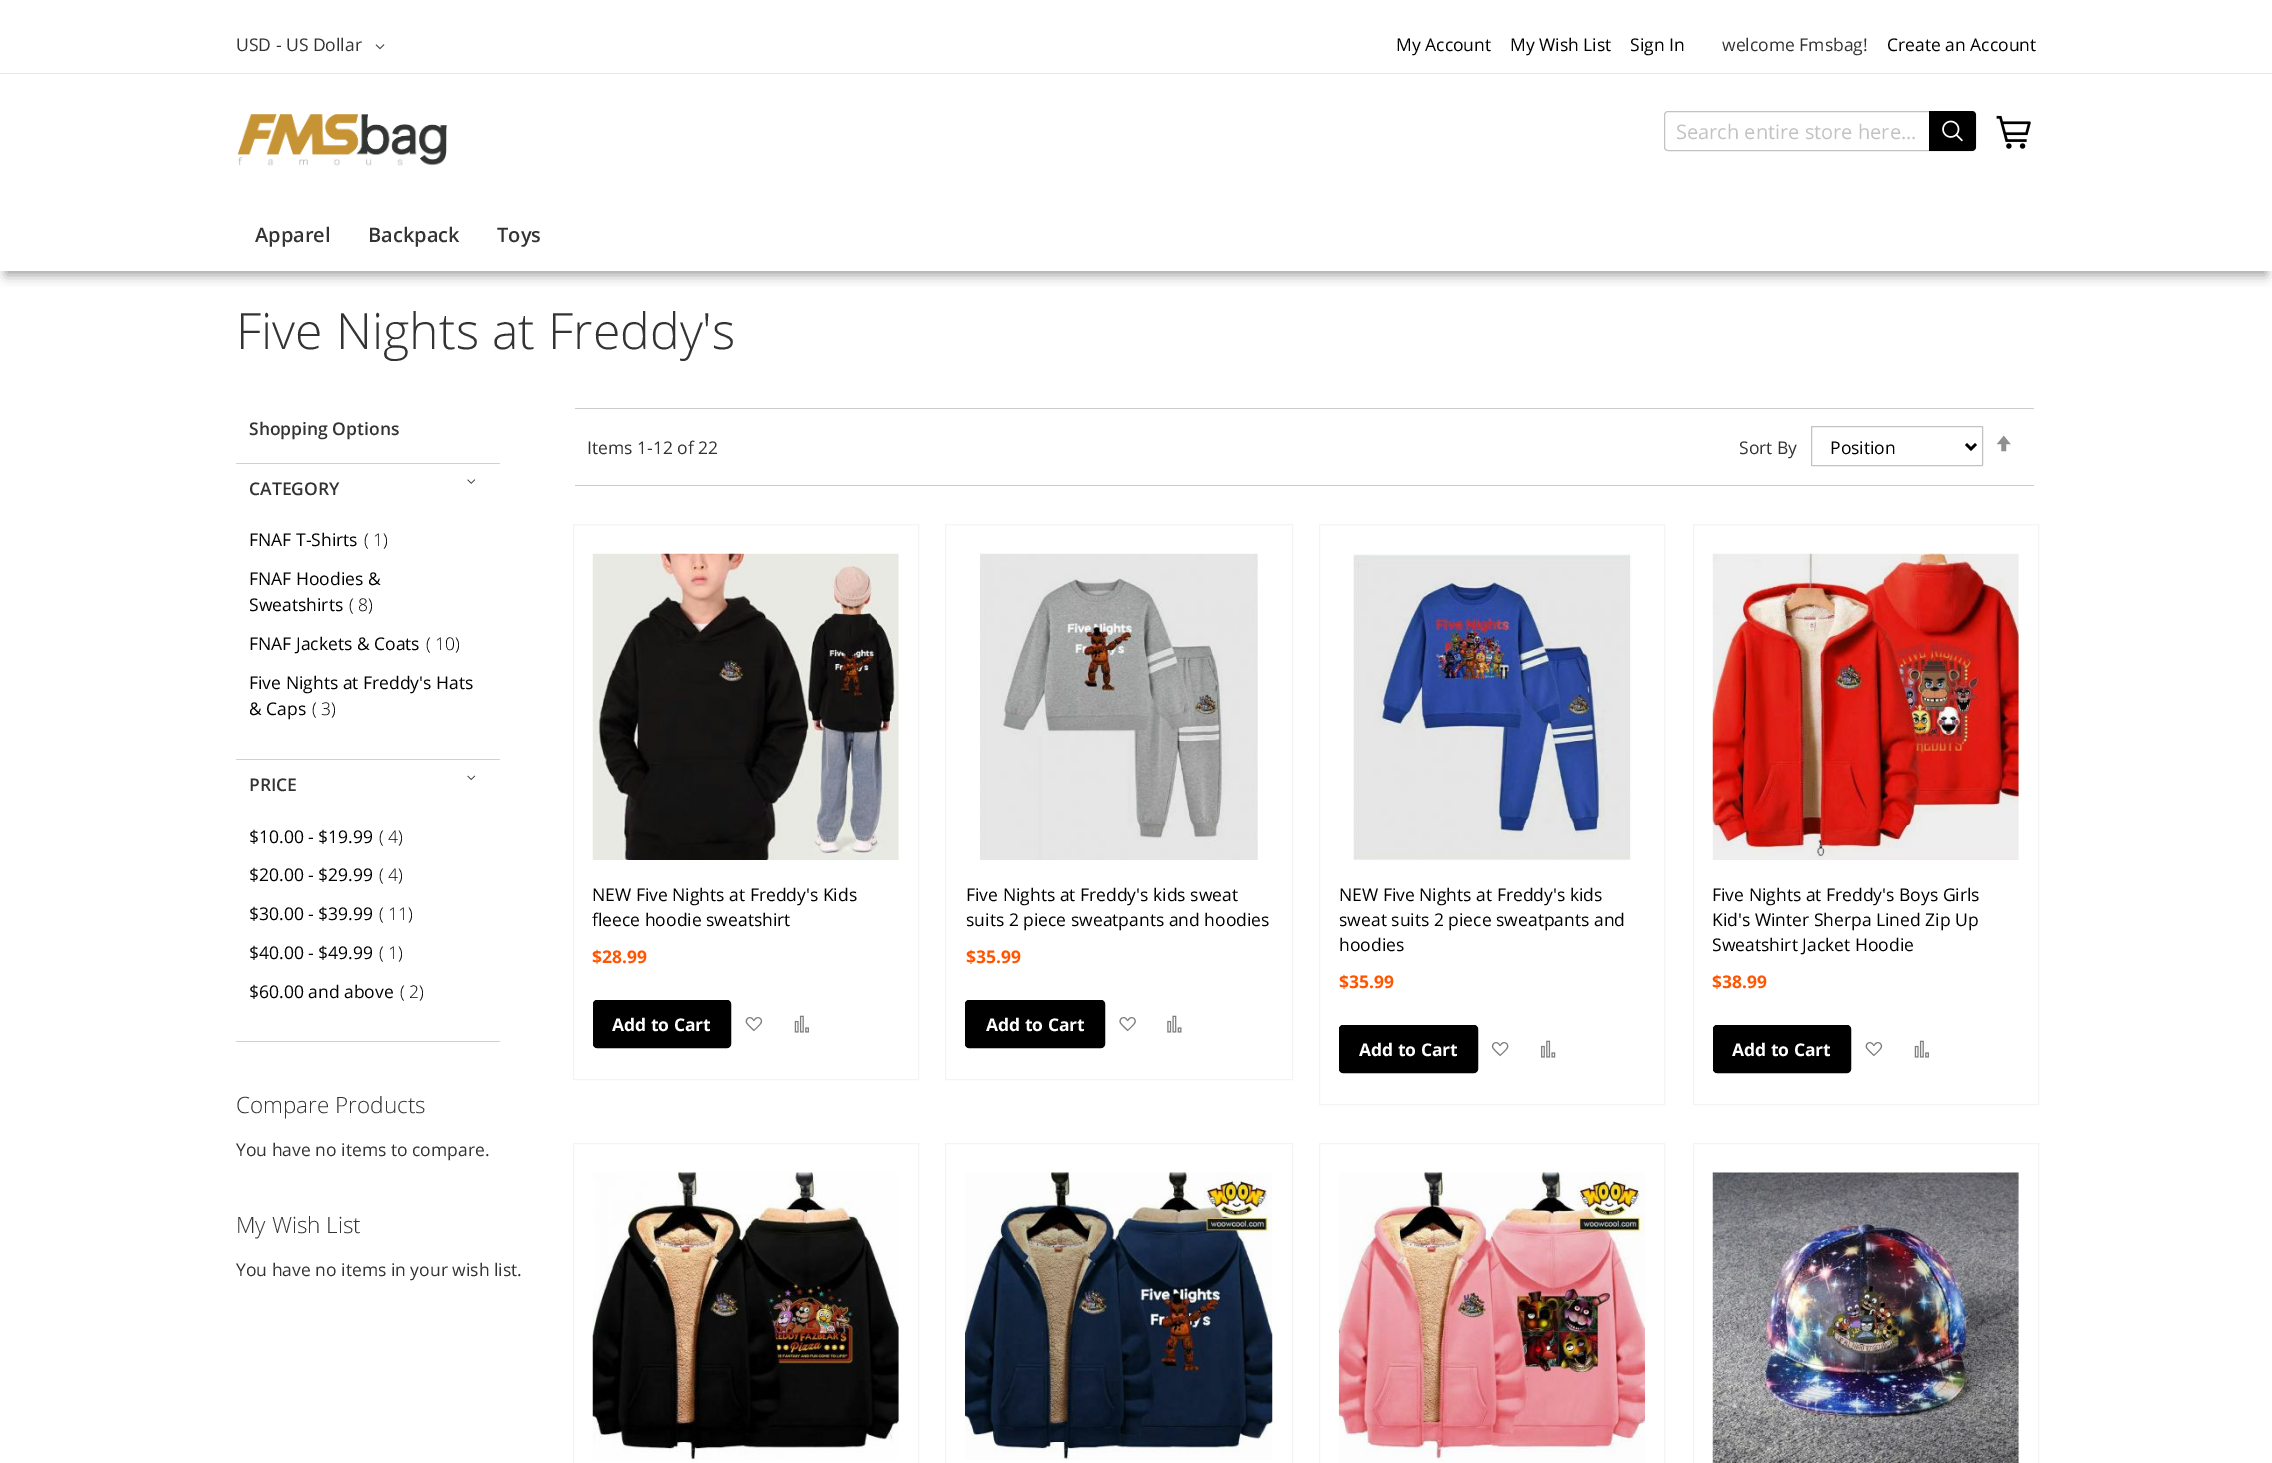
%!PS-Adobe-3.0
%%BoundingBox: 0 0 2272 1463
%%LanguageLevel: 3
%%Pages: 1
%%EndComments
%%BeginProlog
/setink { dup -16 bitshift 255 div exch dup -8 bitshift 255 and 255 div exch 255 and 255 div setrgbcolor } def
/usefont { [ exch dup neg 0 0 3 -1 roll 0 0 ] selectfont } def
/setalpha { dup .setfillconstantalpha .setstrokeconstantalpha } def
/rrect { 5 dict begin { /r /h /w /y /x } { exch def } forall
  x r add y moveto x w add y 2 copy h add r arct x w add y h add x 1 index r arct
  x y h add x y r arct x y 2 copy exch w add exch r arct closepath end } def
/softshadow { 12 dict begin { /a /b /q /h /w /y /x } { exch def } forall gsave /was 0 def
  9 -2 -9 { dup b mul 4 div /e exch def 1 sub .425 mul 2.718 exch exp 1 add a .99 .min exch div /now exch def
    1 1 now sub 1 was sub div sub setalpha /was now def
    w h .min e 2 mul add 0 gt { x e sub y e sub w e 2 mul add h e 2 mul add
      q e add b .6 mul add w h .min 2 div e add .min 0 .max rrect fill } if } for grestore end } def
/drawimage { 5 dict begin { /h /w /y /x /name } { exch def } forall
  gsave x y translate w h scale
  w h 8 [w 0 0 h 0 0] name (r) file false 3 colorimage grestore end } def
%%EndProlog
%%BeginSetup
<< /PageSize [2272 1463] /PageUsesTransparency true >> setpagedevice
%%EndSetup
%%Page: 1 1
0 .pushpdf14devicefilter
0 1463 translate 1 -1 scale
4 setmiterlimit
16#FFFFFF setink
0 0 2272 1463 rectfill
16#E8E8E8 setink
0 73 2272 1 rectfill
/OpenSans-Regular 17.5 usefont
16#333333 setink
236 51 moveto (USD - US Dollar) show
(img1.raw) 375 44 10 6 drawimage
16#000000 setink
[
    [(My Account) 1396 51]
    [(My Wish List) 1510 51]
    [(Sign In) 1630 51]
] { aload pop moveto show } forall
16#333333 setink
1722 51 moveto (welcome Fmsbag!) show
16#000000 setink
1887 51 moveto (Create an Account) show
(img2.raw) 237 114 210 52 drawimage
16#C2C2C2 setink
1664.5 111.5 311 39 3.5 rrect stroke
/OpenSans-Regular 20 usefont
1676 139 moveto (Search entire store here...) show
16#000000 setink
1929 111 moveto 1972 111 lineto 1974 111 1976 113 1976 115 curveto 1976 147 lineto 1976 149 1974 151 1972 151 curveto 1929 151 lineto closepath fill
(img3.raw) 1942 120 21 22 drawimage
(img4.raw) 1996 115 35 34 drawimage
gsave
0 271 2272 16 rectclip
16#848484 setink
6 214 2260 61 0 6 0.8 softshadow
grestore
/OpenSans-SemiBold 20 usefont
16#333333 setink
[
    [(Apparel) 255 242]
    [(Backpack) 368 242]
    [(Toys) 497 242]
] { aload pop moveto show } forall
/OpenSans-Light 50 usefont
236 349 moveto (Five Nights at Freddy's) show
16#D1D1D1 setink
236 463 264 1 rectfill
/OpenSans-SemiBold 17.5 usefont
16#333333 setink
249 435 moveto (Shopping Options) show
16#D1D1D1 setink
236 759 264 1 rectfill
(img5.raw) 467 479 9 5 drawimage
16#333333 setink
249 495 moveto (CATEGORY) show
/OpenSans-Regular 17.5 usefont
16#000000 setink
249 546 moveto (FNAF T-Shirts) show
/OpenSans-Light 17.5 usefont
364 546 moveto (\( 1\)) show
/OpenSans-Regular 17.5 usefont
249 585 moveto (FNAF Hoodies &) show
249 611 moveto (Sweatshirts) show
/OpenSans-Light 17.5 usefont
349 611 moveto (\( 8\)) show
/OpenSans-Regular 17.5 usefont
249 650 moveto (FNAF Jackets & Coats) show
/OpenSans-Light 17.5 usefont
426 650 moveto (\( 10\)) show
/OpenSans-Regular 17.5 usefont
249 689 moveto (Five Nights at Freddy's Hats) show
249 715 moveto (& Caps) show
/OpenSans-Light 17.5 usefont
312 715 moveto (\( 3\)) show
16#D1D1D1 setink
236 1041 264 1 rectfill
(img6.raw) 467 775 9 5 drawimage
/OpenSans-SemiBold 17.5 usefont
16#333333 setink
249 791 moveto (PRICE) show
/OpenSans-Regular 17.5 usefont
16#000000 setink
249 843 moveto ($10.00 - $19.99) show
/OpenSans-Light 17.5 usefont
379 843 moveto (\( 4\)) show
/OpenSans-Regular 17.5 usefont
249 881 moveto ($20.00 - $29.99) show
/OpenSans-Light 17.5 usefont
379 881 moveto (\( 4\)) show
/OpenSans-Regular 17.5 usefont
249 920 moveto ($30.00 - $39.99) show
/OpenSans-Light 17.5 usefont
379 920 moveto (\( 11\)) show
/OpenSans-Regular 17.5 usefont
249 959 moveto ($40.00 - $49.99) show
/OpenSans-Light 17.5 usefont
379 959 moveto (\( 1\)) show
/OpenSans-Regular 17.5 usefont
249 998 moveto ($60.00 and above) show
/OpenSans-Light 17.5 usefont
400 998 moveto (\( 2\)) show
16#CCCCCC setink
575 408 1459 1 rectfill
575 485 1459 1 rectfill
/OpenSans-Regular 17.5 usefont
16#333333 setink
587 454 moveto (Items 1-12 of 22) show
1739 454 moveto (Sort By) show
16#C2C2C2 setink
1811.5 426.5 171 39 0.5 rrect stroke
16#000000 setink
2.5 setlinewidth
1966 444 moveto 1971 449 lineto 1976 444 lineto stroke
1830 454 moveto (Position) show
(img7.raw) 1996 435 15 17 drawimage
16#F4F4F4 setink
1 setlinewidth
573.5 524.5 345 555 rectstroke
(img8.raw) 592 553 307 307 drawimage
16#000000 setink
592 901 moveto (NEW Five Nights at Freddy's Kids) show
592 926 moveto (fleece hoodie sweatshirt) show
/OpenSans-Bold 17.5 usefont
16#FF5501 setink
592 963 moveto ($28.99) show
16#000000 setink
593.5 1000.5 137 47 3.5 rrect gsave fill grestore
stroke
16#FFFFFF setink
612 1031 moveto (Add to Cart) show
(img9.raw) 745 1017 18 15 drawimage
(img10.raw) 794 1015 15 18 drawimage
16#F4F4F4 setink
945.5 524.5 347 555 rectstroke
(img11.raw) 980 553 278 307 drawimage
/OpenSans-Regular 17.5 usefont
16#000000 setink
966 901 moveto (Five Nights at Freddy's kids sweat) show
966 926 moveto (suits 2 piece sweatpants and hoodies) show
/OpenSans-Bold 17.5 usefont
16#FF5501 setink
966 963 moveto ($35.99) show
16#000000 setink
965.5 1000.5 139 47 3.5 rrect gsave fill grestore
stroke
16#FFFFFF setink
986 1031 moveto (Add to Cart) show
(img12.raw) 1119 1017 17 15 drawimage
(img13.raw) 1167 1015 15 18 drawimage
16#F4F4F4 setink
1319.5 524.5 345 580 rectstroke
(img14.raw) 1353 554 279 306 drawimage
/OpenSans-Regular 17.5 usefont
16#000000 setink
[
    [(NEW Five Nights at Freddy's kids) 1339 901]
    [(sweat suits 2 piece sweatpants and) 1339 926]
    [(hoodies) 1339 951]
] { aload pop moveto show } forall
/OpenSans-Bold 17.5 usefont
16#FF5501 setink
1339 988 moveto ($35.99) show
16#000000 setink
1339.5 1025.5 138 47 3.5 rrect gsave fill grestore
stroke
16#FFFFFF setink
1359 1056 moveto (Add to Cart) show
(img15.raw) 1491 1042 18 15 drawimage
(img16.raw) 1541 1040 15 18 drawimage
16#F4F4F4 setink
1693.5 524.5 345 580 rectstroke
(img17.raw) 1712 553 307 307 drawimage
/OpenSans-Regular 17.5 usefont
16#000000 setink
[
    [(Five Nights at Freddy's Boys Girls) 1712 901]
    [(Kid's Winter Sherpa Lined Zip Up) 1712 926]
    [(Sweatshirt Jacket Hoodie) 1712 951]
] { aload pop moveto show } forall
/OpenSans-Bold 17.5 usefont
16#FF5501 setink
1712 988 moveto ($38.99) show
16#000000 setink
1713.5 1025.5 137 47 3.5 rrect gsave fill grestore
stroke
16#FFFFFF setink
1732 1056 moveto (Add to Cart) show
(img9.raw) 1865 1042 18 15 drawimage
(img10.raw) 1914 1040 15 18 drawimage
16#F4F4F4 setink
573.5 1143.5 345 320 rectstroke
(img18.raw) 592 1172 307 288 drawimage
945.5 1143.5 347 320 rectstroke
(img19.raw) 965 1172 308 288 drawimage
1319.5 1143.5 345 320 rectstroke
(img20.raw) 1338 1172 307 291 drawimage
1693.5 1143.5 345 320 rectstroke
(img21.raw) 1712 1172 307 291 drawimage
/OpenSans-Light 22.5 usefont
16#333333 setink
236 1113 moveto (Compare Products) show
/OpenSans-Regular 17.5 usefont
236 1156 moveto (You have no items to compare.) show
/OpenSans-Light 22.5 usefont
236 1233 moveto (My Wish List) show
/OpenSans-Regular 17.5 usefont
236 1276 moveto (You have no items in your wish list.) show
.poppdf14devicefilter showpage
%%EOF
